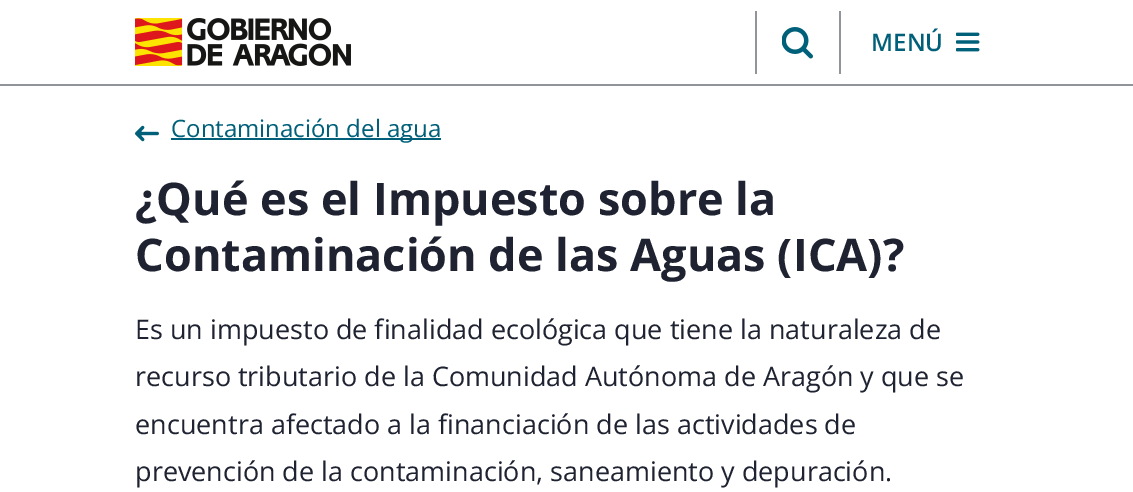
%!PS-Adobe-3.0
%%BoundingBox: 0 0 1133 492
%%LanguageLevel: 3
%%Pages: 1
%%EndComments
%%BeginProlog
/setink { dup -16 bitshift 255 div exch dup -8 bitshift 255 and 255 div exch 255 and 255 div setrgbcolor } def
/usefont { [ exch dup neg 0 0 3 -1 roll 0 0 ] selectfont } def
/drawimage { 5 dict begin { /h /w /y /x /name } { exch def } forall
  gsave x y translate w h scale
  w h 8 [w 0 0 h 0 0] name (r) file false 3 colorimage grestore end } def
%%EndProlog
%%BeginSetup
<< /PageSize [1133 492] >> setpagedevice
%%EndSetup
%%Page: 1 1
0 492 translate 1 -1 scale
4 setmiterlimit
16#FFFFFF setink
0 0 1133 492 rectfill
16#92949B setink
0 84 1133 2 rectfill
(img1.raw) 135 18 216 48 drawimage
755 11 2 63 rectfill
(img2.raw) 782 27 31 32 drawimage
839 11 2 63 rectfill
/OpenSans-SemiBold 24 usefont
16#00607A setink
871 51 moveto (MENÚ) show
(img3.raw) 956 32 24 20 drawimage
(img4.raw) 135 125 24 17 drawimage
171 138 270 2 rectfill
/OpenSans-Regular 24 usefont
171 137 moveto (Contaminación del agua) show
/OpenSans-Bold 45 usefont
16#1F2331 setink
135 215 moveto (¿Qué es el Impuesto sobre la) show
135 271 moveto (Contaminación de las Aguas \(ICA\)?) show
/OpenSans-Regular 27 usefont
[
    [(Es un impuesto de finalidad ecológica que tiene la naturaleza de) 135 339]
    [(recurso tributario de la Comunidad Autónoma de Aragón y que se) 135 386]
    [(encuentra afectado a la financiación de las actividades de) 135 434]
    [(prevención de la contaminación, saneamiento y depuración.) 135 481]
] { aload pop moveto show } forall
showpage
%%EOF
